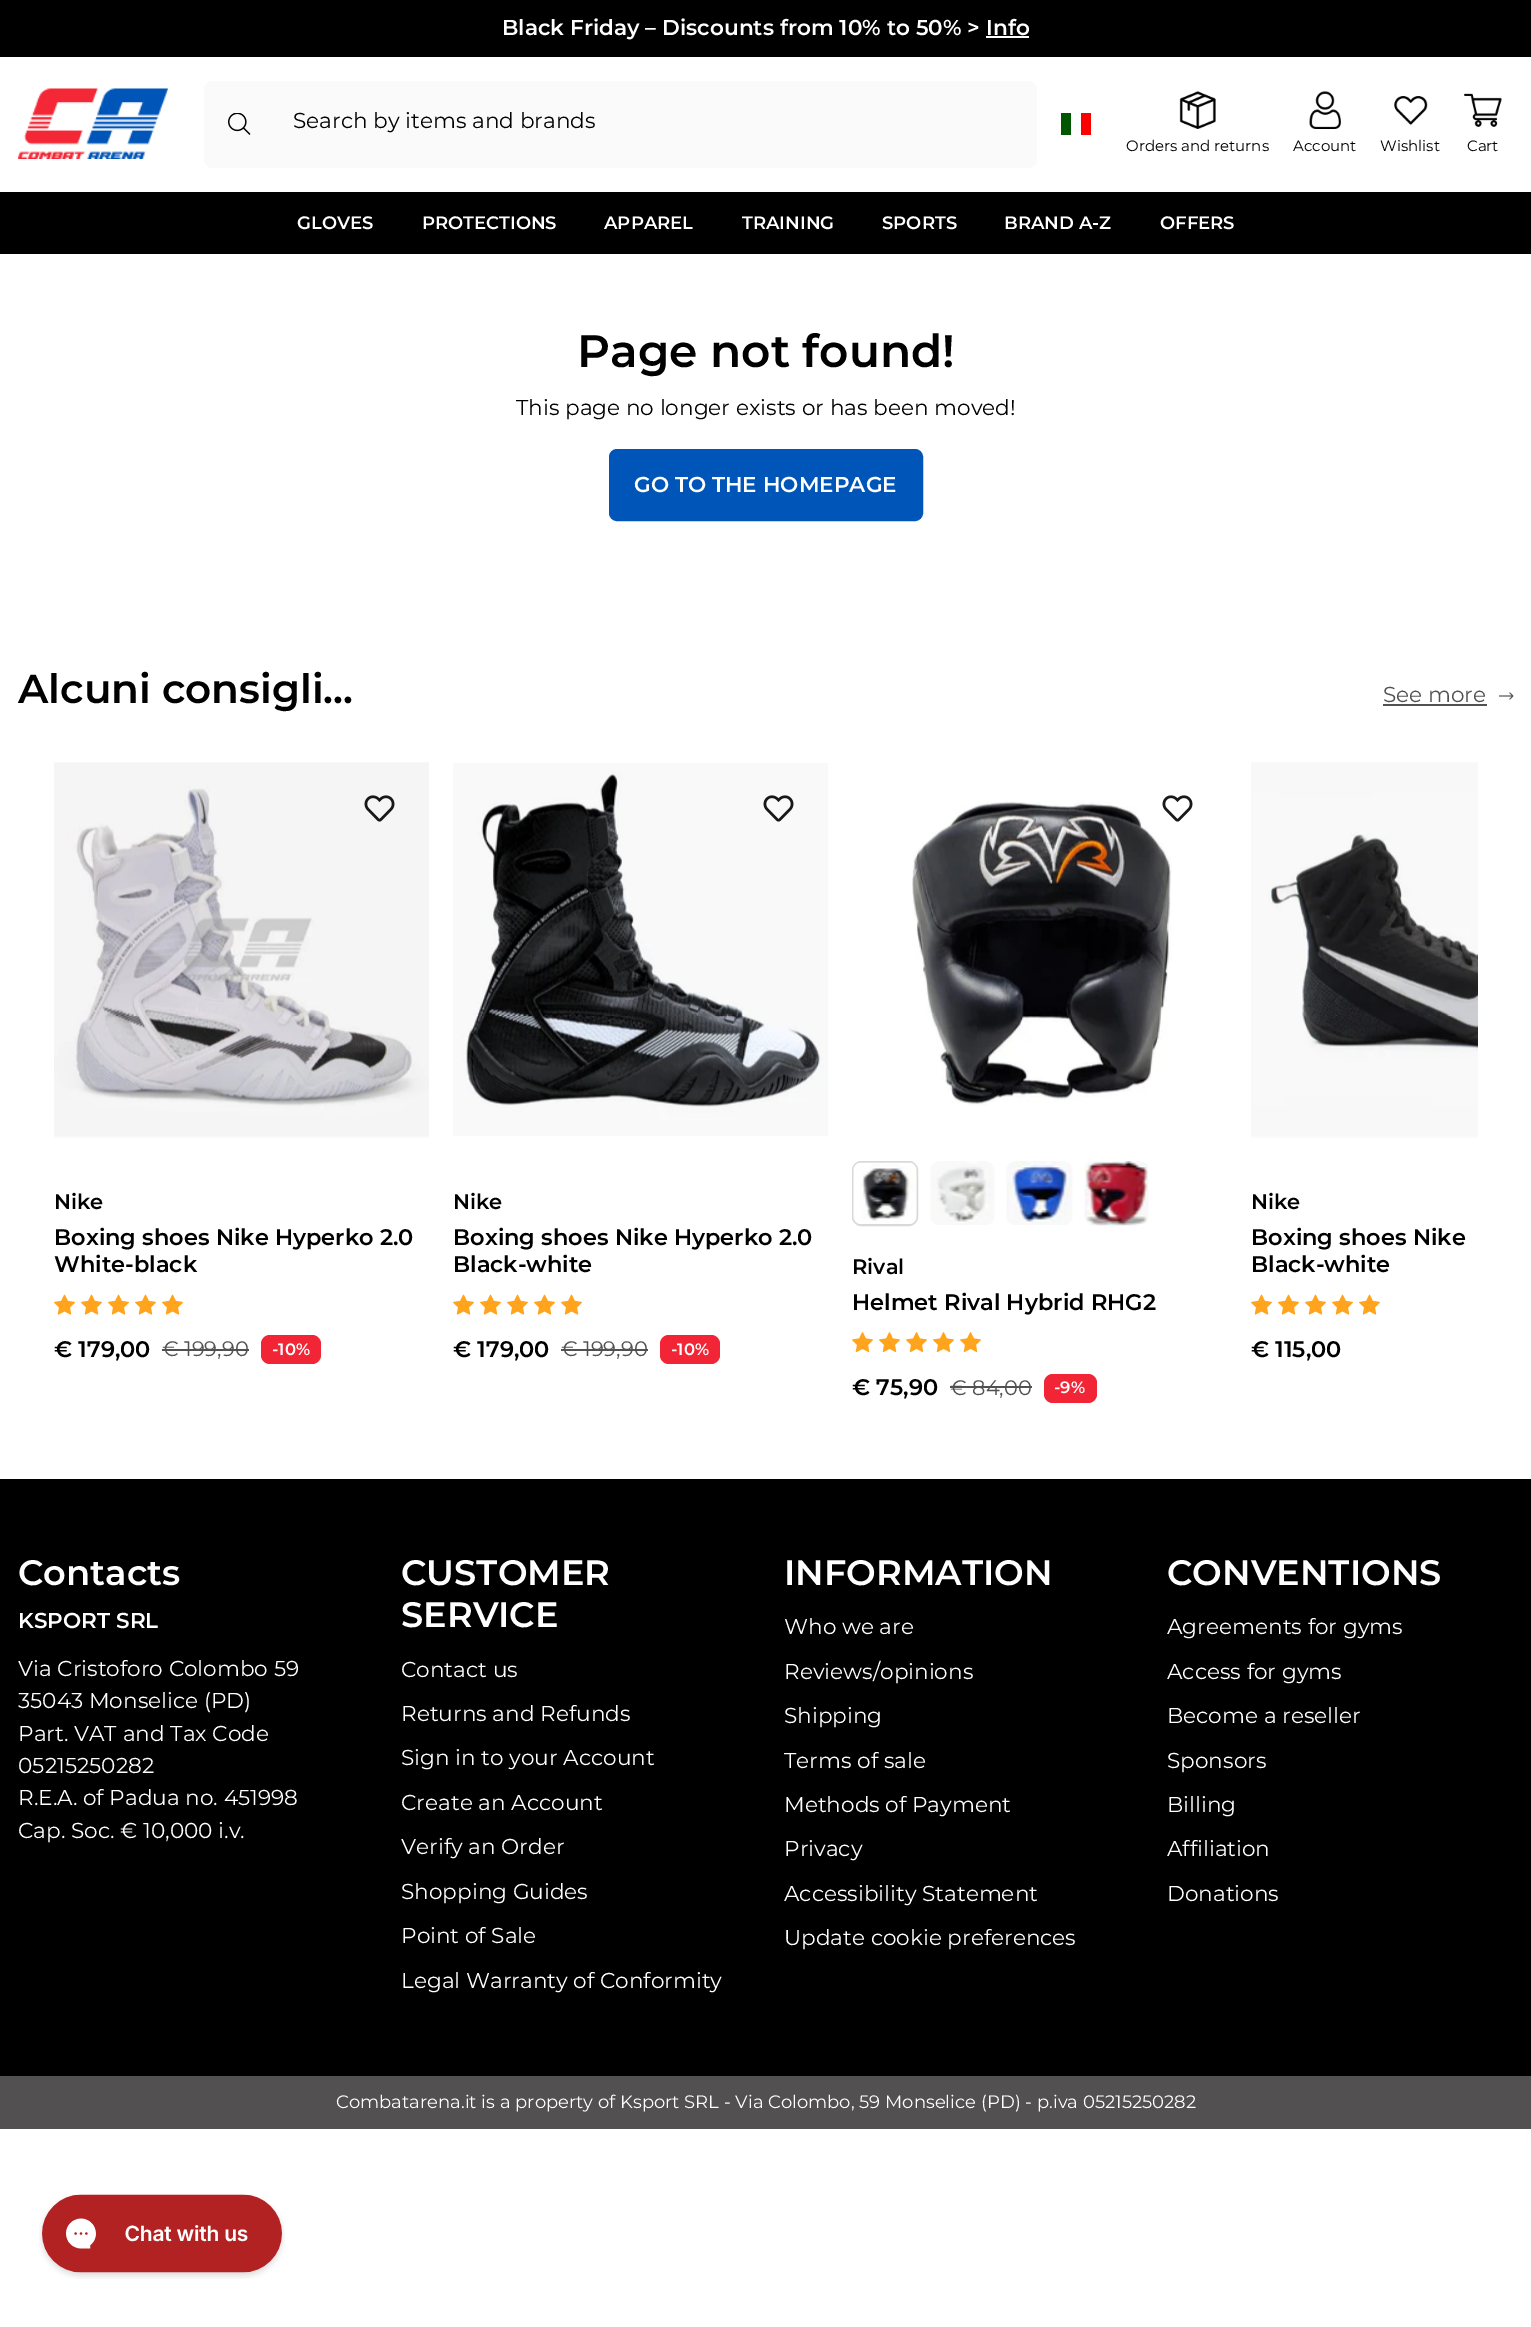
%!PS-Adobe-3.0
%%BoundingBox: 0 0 1531 2327
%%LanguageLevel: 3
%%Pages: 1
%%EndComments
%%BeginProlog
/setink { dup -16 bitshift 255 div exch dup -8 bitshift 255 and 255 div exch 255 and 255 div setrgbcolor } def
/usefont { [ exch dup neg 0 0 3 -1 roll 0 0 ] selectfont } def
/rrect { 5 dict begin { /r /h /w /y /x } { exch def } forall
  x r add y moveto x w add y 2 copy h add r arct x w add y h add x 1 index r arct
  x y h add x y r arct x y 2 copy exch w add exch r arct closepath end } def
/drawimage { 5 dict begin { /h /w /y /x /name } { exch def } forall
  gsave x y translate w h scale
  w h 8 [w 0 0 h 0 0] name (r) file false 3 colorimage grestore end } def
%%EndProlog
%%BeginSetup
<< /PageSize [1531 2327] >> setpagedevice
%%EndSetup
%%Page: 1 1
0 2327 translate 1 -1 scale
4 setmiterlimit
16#FFFFFF setink
0 0 1531 2327 rectfill
16#000000 setink
0 0 1531 57 rectfill
/Montserrat-SemiBold 21.6 usefont
16#FFFFFF setink
502 35 moveto (Black Friday – Discounts from 10% to 50% >) show
986 35 moveto (Info) show
986 36 43 2 rectfill
(img1.raw) 18 88 150 71 drawimage
16#FAFAFA setink
204 81 833 87 9 rrect fill
(img2.raw) 228 113 23 22 drawimage
/Montserrat-Regular 21.6 usefont
16#000000 setink
293 128 moveto (Search by items and brands) show
16#005700 setink
1061 113 10 22 rectfill
16#FC0000 setink
1081 113 10 22 rectfill
(img3.raw) 1179 91 37 38 drawimage
/Montserrat-Regular 15 usefont
16#000000 setink
1126 151 moveto (Orders and returns) show
(img4.raw) 1309 91 32 38 drawimage
1293 151 moveto (Account) show
(img5.raw) 1394 96 34 29 drawimage
1380 151 moveto (Wishlist) show
(img6.raw) 1464 93 38 34 drawimage
1467 151 moveto (Cart) show
0 192 1531 62 rectfill
/Montserrat-SemiBold 18 usefont
16#FFFFFF setink
[
    [(GLOVES) 297 229]
    [(PROTECTIONS) 422 229]
    [(APPAREL) 604 229]
    [(TRAINING) 742 229]
    [(SPORTS) 882 229]
    [(BRAND A-Z) 1004 229]
    [(OFFERS) 1160 229]
] { aload pop moveto show } forall
/Montserrat-SemiBold 45.5 usefont
16#000000 setink
577 367 moveto (Page not found!) show
/Montserrat-Regular 21.6 usefont
516 415 moveto (This page no longer exists or has been moved!) show
16#0056B8 setink
610 450 312 70 7 rrect gsave fill grestore
2 setlinewidth
stroke
/Montserrat-SemiBold 21.6 usefont
16#FFFFFF setink
634 492 moveto (GO TO THE HOMEPAGE) show
/Montserrat-SemiBold 40.5 usefont
16#000000 setink
18 703 moveto (Alcuni consigli...) show
/Montserrat-Regular 21.6 usefont
16#525050 setink
1383 702 moveto (See more) show
1383 704 104 2 rectfill
(img7.raw) 1499 692 15 8 drawimage
(img8.raw) 54 762 375 376 drawimage
(img9.raw) 364 795 31 27 drawimage
/Montserrat-SemiBold 21 usefont
16#000000 setink
54 1209 moveto (Nike) show
/Montserrat-SemiBold 22.5 usefont
54 1245 moveto (Boxing shoes Nike Hyperko 2.0) show
54 1272 moveto (White-black) show
(img10.raw) 54 1294 21 21 drawimage
(img10.raw) 81 1294 21 21 drawimage
(img10.raw) 108 1294 21 21 drawimage
(img10.raw) 135 1294 21 21 drawimage
(img10.raw) 162 1294 21 21 drawimage
54 1357 moveto (€ 179,00) show
/Montserrat-Regular 21 usefont
16#525050 setink
162 1356 moveto (€ 199,90) show
162 1349 87 2 rectfill
16#F12535 setink
261 1335 60 29 9 rrect fill
/Montserrat-SemiBold 16.5 usefont
16#FFFFFF setink
272 1355 moveto (-10%) show
(img11.raw) 453 763 375 373 drawimage
(img12.raw) 763 795 31 27 drawimage
/Montserrat-SemiBold 21 usefont
16#000000 setink
453 1209 moveto (Nike) show
/Montserrat-SemiBold 22.5 usefont
453 1245 moveto (Boxing shoes Nike Hyperko 2.0) show
453 1272 moveto (Black-white) show
(img10.raw) 453 1294 21 21 drawimage
(img10.raw) 480 1294 21 21 drawimage
(img10.raw) 507 1294 21 21 drawimage
(img10.raw) 534 1294 21 21 drawimage
(img10.raw) 561 1294 21 21 drawimage
453 1357 moveto (€ 179,00) show
/Montserrat-Regular 21 usefont
16#525050 setink
561 1356 moveto (€ 199,90) show
561 1349 87 2 rectfill
16#F12535 setink
660 1335 60 29 9 rrect fill
/Montserrat-SemiBold 16.5 usefont
16#FFFFFF setink
671 1355 moveto (-10%) show
(img13.raw) 912 801 260 305 drawimage
(img14.raw) 1162 795 31 27 drawimage
16#D9D9D9 setink
853 1162 64 63 8 rrect stroke
(img15.raw) 853 1162 64 62 drawimage
(img16.raw) 930 1161 65 64 drawimage
(img17.raw) 1006 1161 67 64 drawimage
(img18.raw) 1084 1161 65 65 drawimage
/Montserrat-SemiBold 21 usefont
16#000000 setink
852 1274 moveto (Rival) show
/Montserrat-SemiBold 22.5 usefont
852 1310 moveto (Helmet Rival Hybrid RHG2) show
(img19.raw) 852 1332 21 21 drawimage
(img19.raw) 879 1332 21 21 drawimage
(img19.raw) 906 1332 21 21 drawimage
(img19.raw) 933 1332 21 21 drawimage
(img19.raw) 960 1332 21 21 drawimage
852 1395 moveto (€ 75,90) show
/Montserrat-Regular 21 usefont
16#525050 setink
950 1395 moveto (€ 84,00) show
950 1386 82 2 rectfill
16#F12535 setink
1044 1374 53 29 9 rrect fill
/Montserrat-SemiBold 16.5 usefont
16#FFFFFF setink
1054 1393 moveto (-9%) show
(img20.raw) 1251 762 227 376 drawimage
/Montserrat-SemiBold 21 usefont
16#000000 setink
1251 1209 moveto (Nike) show
/Montserrat-SemiBold 22.5 usefont
1251 1245 moveto (Boxing shoes Nike) show
1251 1272 moveto (Black-white) show
(img10.raw) 1251 1294 21 21 drawimage
(img10.raw) 1278 1294 21 21 drawimage
(img10.raw) 1305 1294 21 21 drawimage
(img10.raw) 1332 1294 21 21 drawimage
(img10.raw) 1359 1294 21 21 drawimage
1251 1357 moveto (€ 115,00) show
0 1479 1531 597 rectfill
/Montserrat-SemiBold 35.25 usefont
16#FFFFFF setink
18 1585 moveto (Contacts) show
/Montserrat-SemiBold 21.6 usefont
18 1628 moveto (KSPORT SRL) show
/Montserrat-Regular 21.6 usefont
[
    [(Via Cristoforo Colombo 59) 18 1676]
    [(35043 Monselice \(PD\)) 18 1708]
    [(Part. VAT and Tax Code) 18 1741]
    [(05215250282) 18 1773]
    [(R.E.A. of Padua no. 451998) 18 1805]
    [(Cap. Soc. € 10,000 i.v.) 18 1838]
] { aload pop moveto show } forall
/Montserrat-SemiBold 35.25 usefont
401 1585 moveto (CUSTOMER) show
401 1627 moveto (SERVICE) show
/Montserrat-Regular 21.6 usefont
[
    [(Contact us) 401 1677]
    [(Returns and Refunds) 401 1721]
    [(Sign in to your Account) 401 1765]
    [(Create an Account) 401 1810]
    [(Verify an Order) 401 1854]
    [(Shopping Guides) 401 1899]
    [(Point of Sale) 401 1943]
    [(Legal Warranty of Conformity) 401 1988]
] { aload pop moveto show } forall
/Montserrat-SemiBold 35.25 usefont
784 1585 moveto (INFORMATION) show
/Montserrat-Regular 21.6 usefont
[
    [(Who we are) 784 1634]
    [(Reviews/opinions) 784 1679]
    [(Shipping) 784 1723]
    [(Terms of sale) 784 1768]
    [(Methods of Payment) 784 1812]
    [(Privacy) 784 1856]
    [(Accessibility Statement) 784 1901]
    [(Update cookie preferences) 784 1945]
] { aload pop moveto show } forall
/Montserrat-SemiBold 35.25 usefont
1167 1585 moveto (CONVENTIONS) show
/Montserrat-Regular 21.6 usefont
[
    [(Agreements for gyms) 1167 1634]
    [(Access for gyms) 1167 1679]
    [(Become a reseller) 1167 1723]
    [(Sponsors) 1167 1768]
    [(Billing) 1167 1812]
    [(Affiliation) 1167 1856]
    [(Donations) 1167 1901]
] { aload pop moveto show } forall
16#525050 setink
0 2076 1531 53 rectfill
/Montserrat-Regular 18 usefont
16#FFFFFF setink
336 2108 moveto (Combatarena.it is a property of Ksport SRL - Via Colombo, 59 Monselice \(PD\) - p.iva 05215250282) show
(img21.raw) 39 2194 246 85 drawimage
showpage
%%EOF
